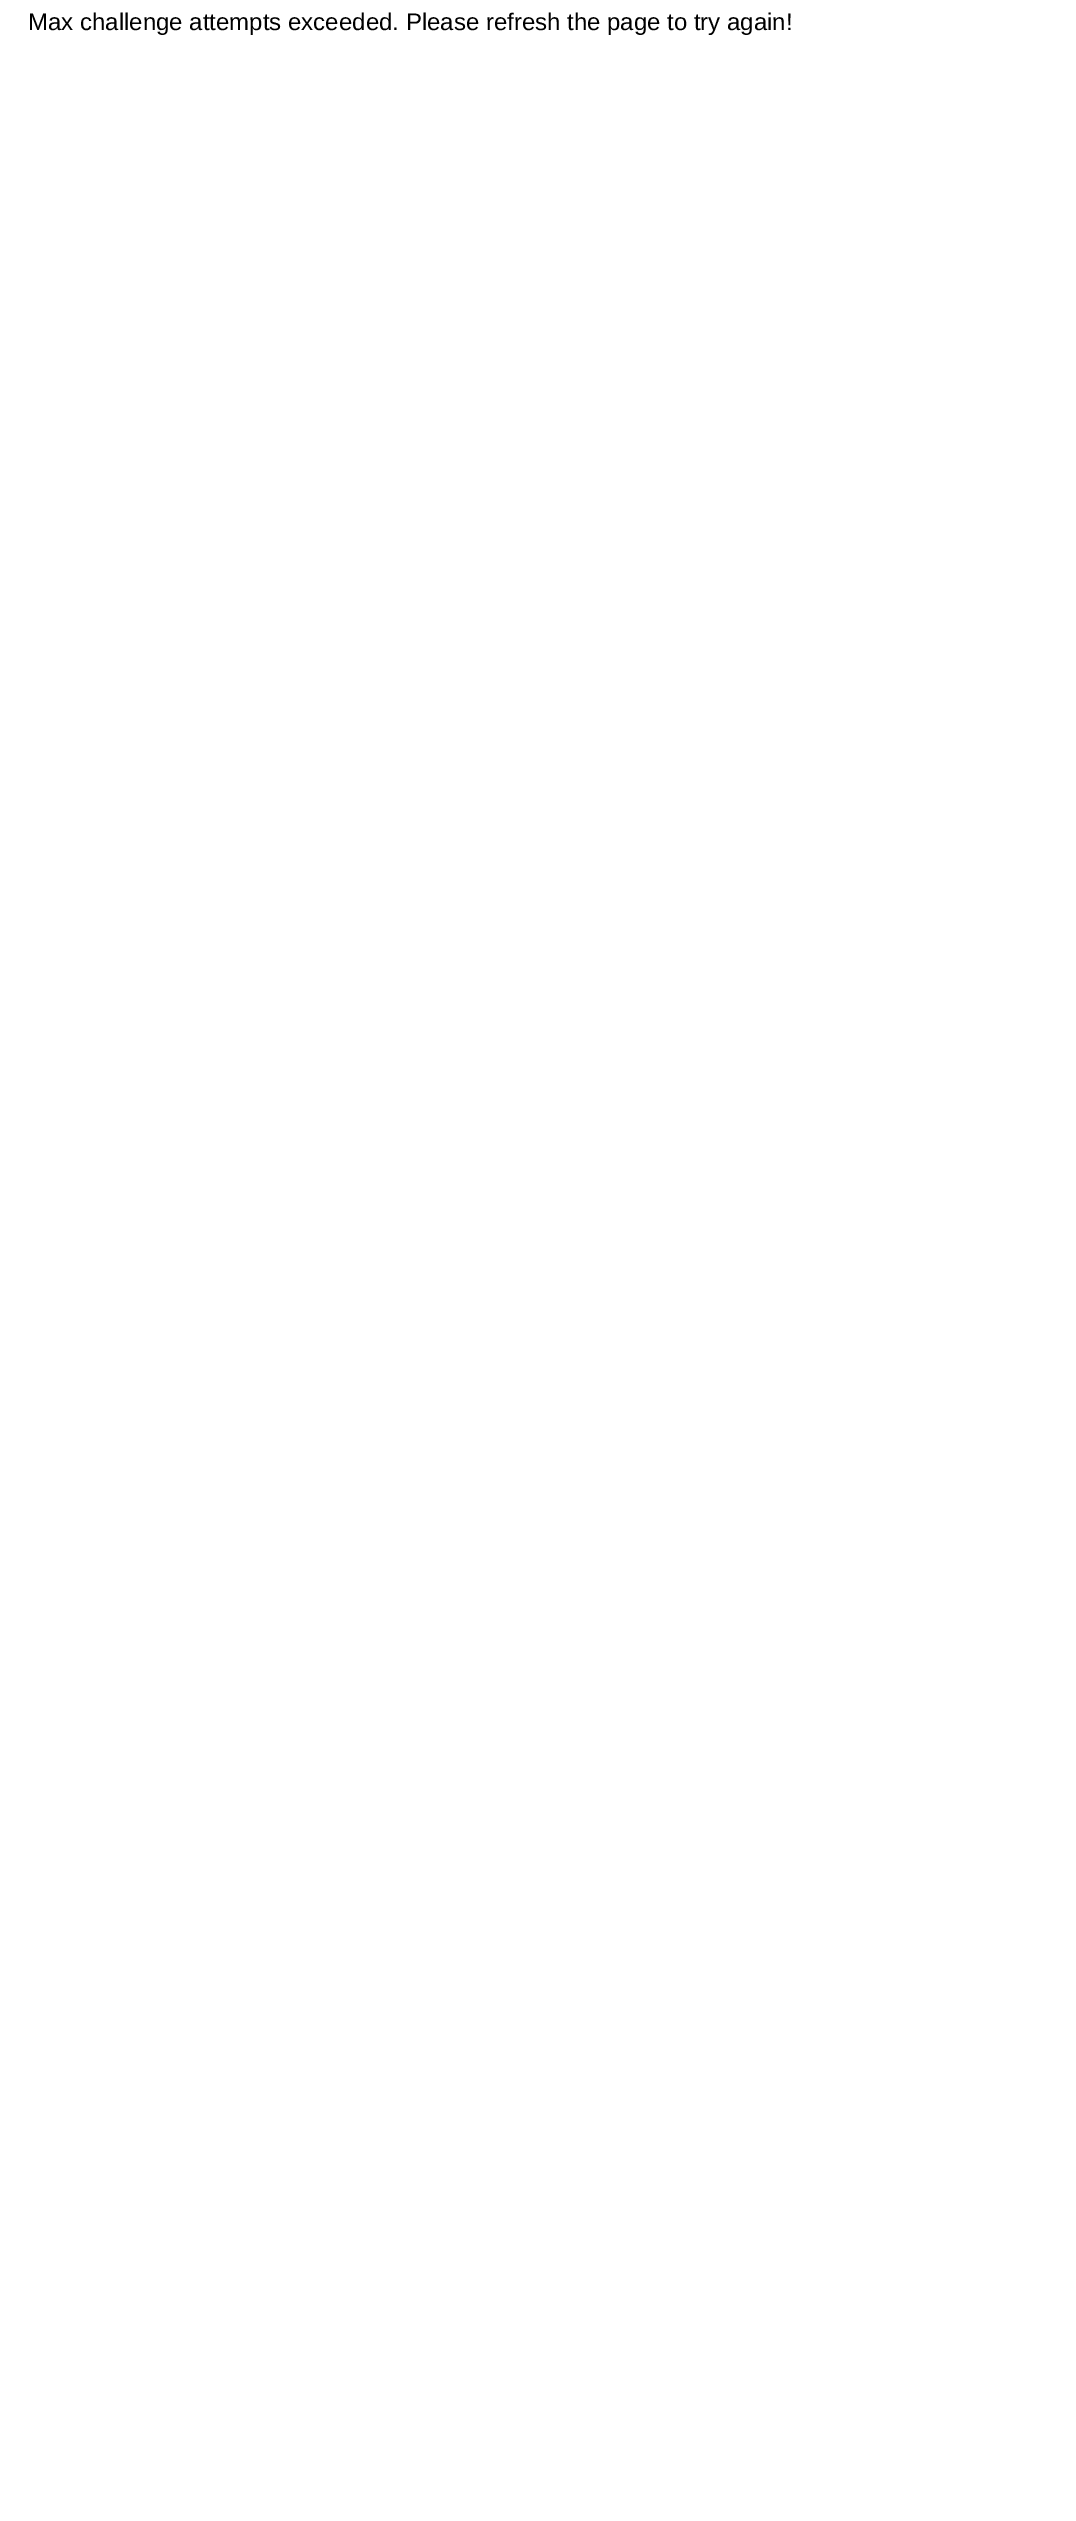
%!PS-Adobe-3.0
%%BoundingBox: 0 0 1076 2521
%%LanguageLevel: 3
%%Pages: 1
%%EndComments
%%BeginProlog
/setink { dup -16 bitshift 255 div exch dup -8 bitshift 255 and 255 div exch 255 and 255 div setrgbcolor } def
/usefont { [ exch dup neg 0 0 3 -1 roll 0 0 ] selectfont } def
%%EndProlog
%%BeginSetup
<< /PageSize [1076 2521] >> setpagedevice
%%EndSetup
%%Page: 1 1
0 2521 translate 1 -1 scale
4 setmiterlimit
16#FFFFFF setink
0 0 1076 2521 rectfill
/LiberationSans-Regular 24 usefont
16#000000 setink
28 30 moveto (Max challenge attempts exceeded. Please refresh the page to try again!) show
showpage
%%EOF
